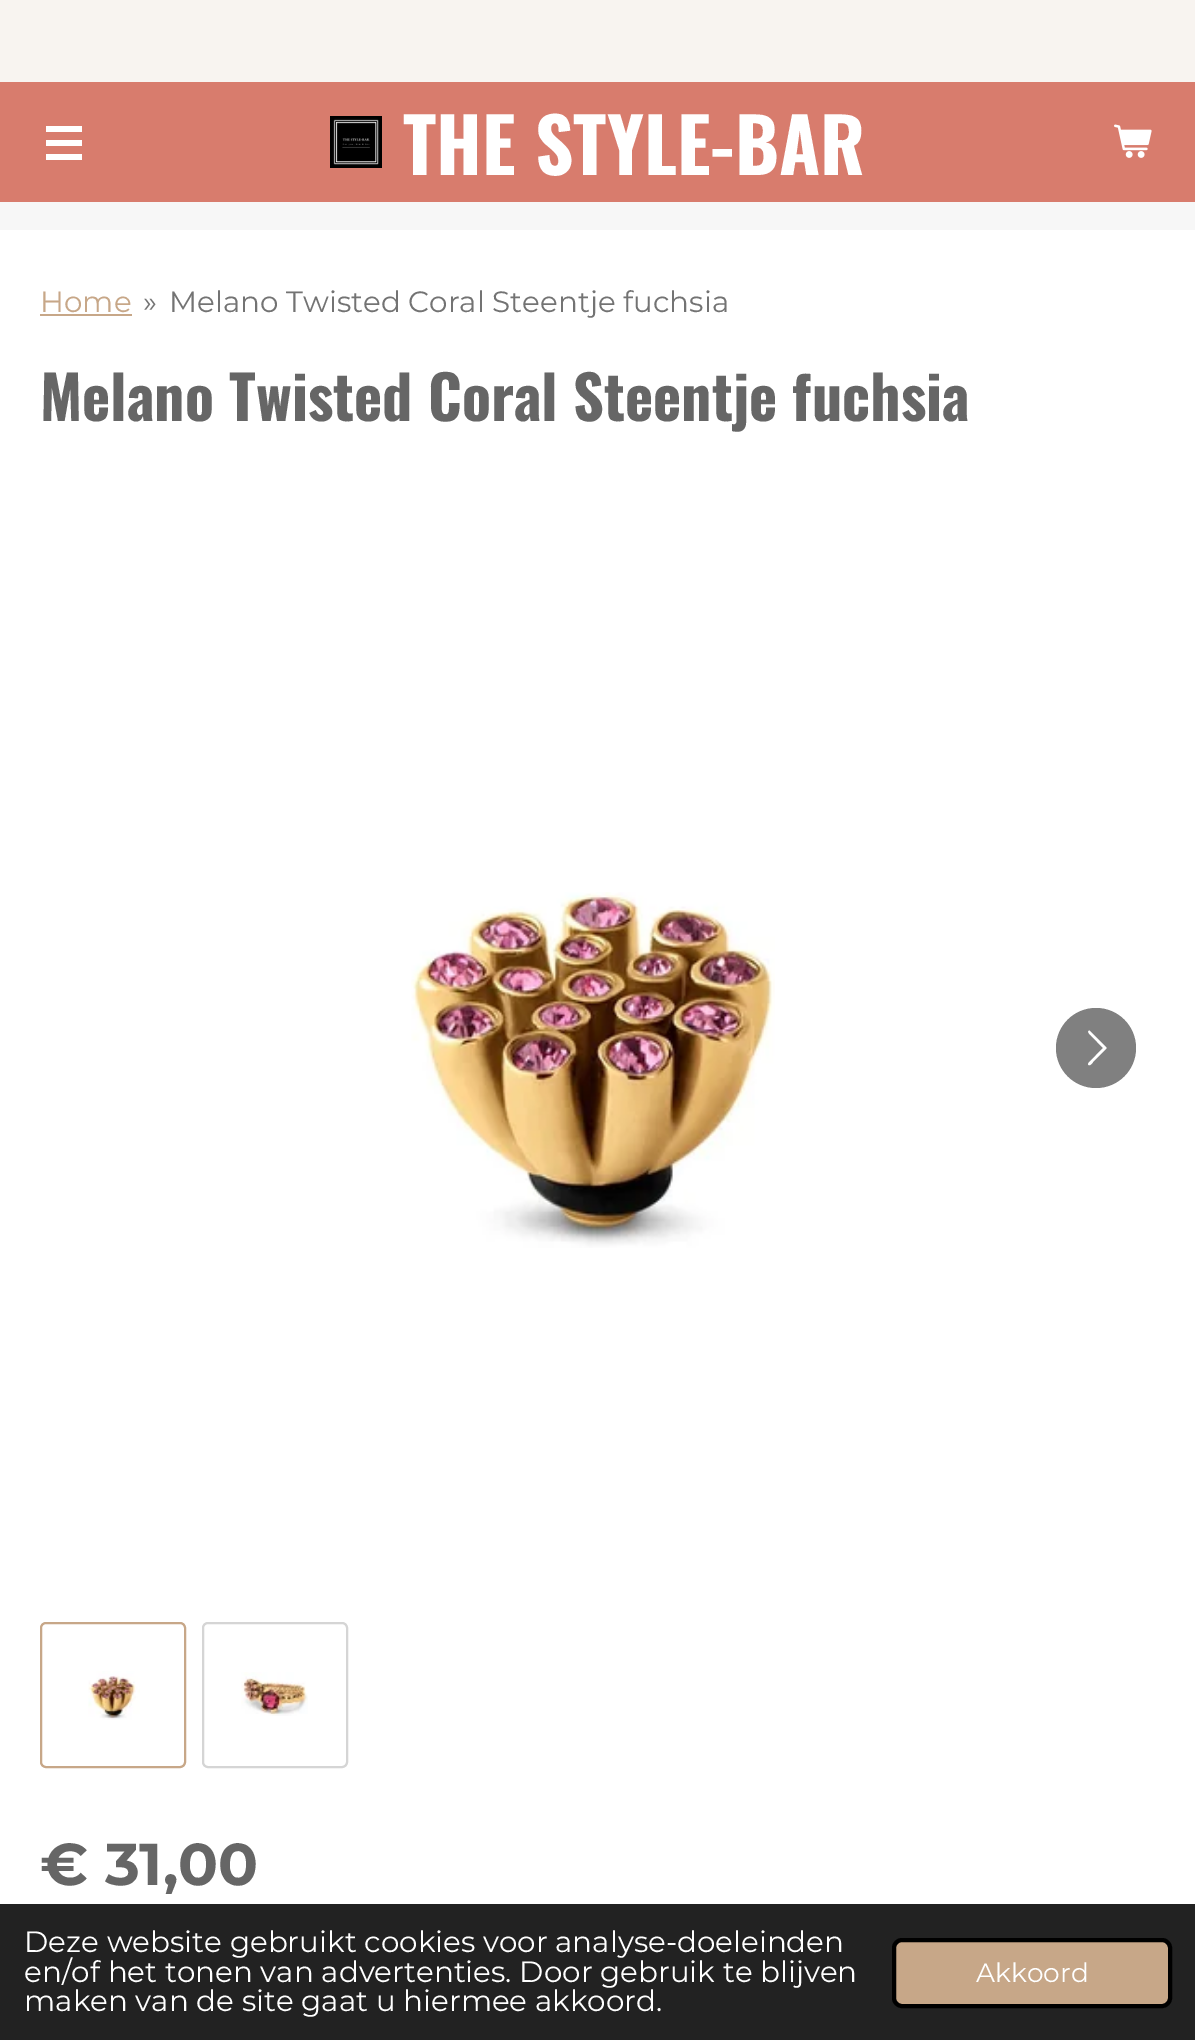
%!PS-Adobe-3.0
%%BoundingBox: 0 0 1195 2040
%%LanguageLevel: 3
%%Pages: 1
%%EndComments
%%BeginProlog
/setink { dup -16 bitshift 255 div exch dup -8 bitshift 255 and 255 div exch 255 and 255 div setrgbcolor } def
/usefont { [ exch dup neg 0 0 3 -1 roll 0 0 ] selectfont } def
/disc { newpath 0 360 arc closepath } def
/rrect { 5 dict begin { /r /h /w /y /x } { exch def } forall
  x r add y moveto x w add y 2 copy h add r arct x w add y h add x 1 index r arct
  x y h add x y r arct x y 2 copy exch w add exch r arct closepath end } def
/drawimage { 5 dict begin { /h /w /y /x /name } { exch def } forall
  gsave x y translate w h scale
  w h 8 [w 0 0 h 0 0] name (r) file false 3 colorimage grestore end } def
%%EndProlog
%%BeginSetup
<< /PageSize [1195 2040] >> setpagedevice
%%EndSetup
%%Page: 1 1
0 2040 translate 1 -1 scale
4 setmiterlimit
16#F7F7F7 setink
0 0 1195 2040 rectfill
[
    [0 0 1195 82 16#F8F4F0]
    [0 82 1195 120 16#D87C6D]
    [46 140 36 6 16#FFFFFF]
    [46 126 36 6 16#FFFFFF]
    [46 154 36 6 16#FFFFFF]
] { aload pop setink rectfill } forall
(img1.raw) 330 116 52 52 drawimage
/Oswald-Bold 75 usefont
403 175 moveto (THE STYLE-BAR) show
(img2.raw) 1114 124 38 34 drawimage
0 230 1195 1674 rectfill
/Montserrat-Regular 29.4 usefont
16#C7A788 setink
40 312 moveto (Home) show
40 314 92 2 rectfill
16#737373 setink
143 312 moveto (») show
169 312 moveto (Melano Twisted Coral Steentje fuchsia) show
/Oswald-Bold 60 usefont
16#666666 setink
40 421 moveto (Melano Twisted Coral Steentje fuchsia) show
(img3.raw) 411 892 364 356 drawimage
16#808080 setink
1096 1048 40 disc fill
16#FFFFFF setink
1088.5 1063 moveto 1103 1048 lineto 1091 1035.5 lineto 1090.5 1035 1086 1031.5 1089.5 1030.5 curveto 1090 1031 lineto 1106.5 1047.5 lineto 1106.5 1048.5 lineto 1093 1062 lineto 1093 1062.5 1089 1067.5 1088 1064 curveto closepath fill
16#C7A788 setink
2 setlinewidth
41 1623 144 144 5 rrect stroke
(img4.raw) 88 1671 52 49 drawimage
16#D5D5D5 setink
203 1623 144 144 5 rrect stroke
(img5.raw) 241 1672 67 44 drawimage
/Montserrat-Bold 59 usefont
16#666666 setink
40 1885 moveto (€ 31,00) show
16#222222 setink
0 1904 1195 136 rectfill
/Montserrat-Regular 29.4 usefont
16#FFFFFF setink
[
    [(Deze website gebruikt cookies voor analyse-doeleinden) 24 1952]
    [(en/of het tonen van advertenties. Door gebruik te blijven) 24 1982]
    [(maken van de site gaat u hiermee akkoord.) 24 2011]
] { aload pop moveto show } forall
16#C7A788 setink
894 1940 276 66 8 rrect gsave fill grestore
16#000000 setink
4 setlinewidth
stroke
/Montserrat-Regular 26.5 usefont
16#FFFFFF setink
976 1982 moveto (Akkoord) show
showpage
%%EOF
